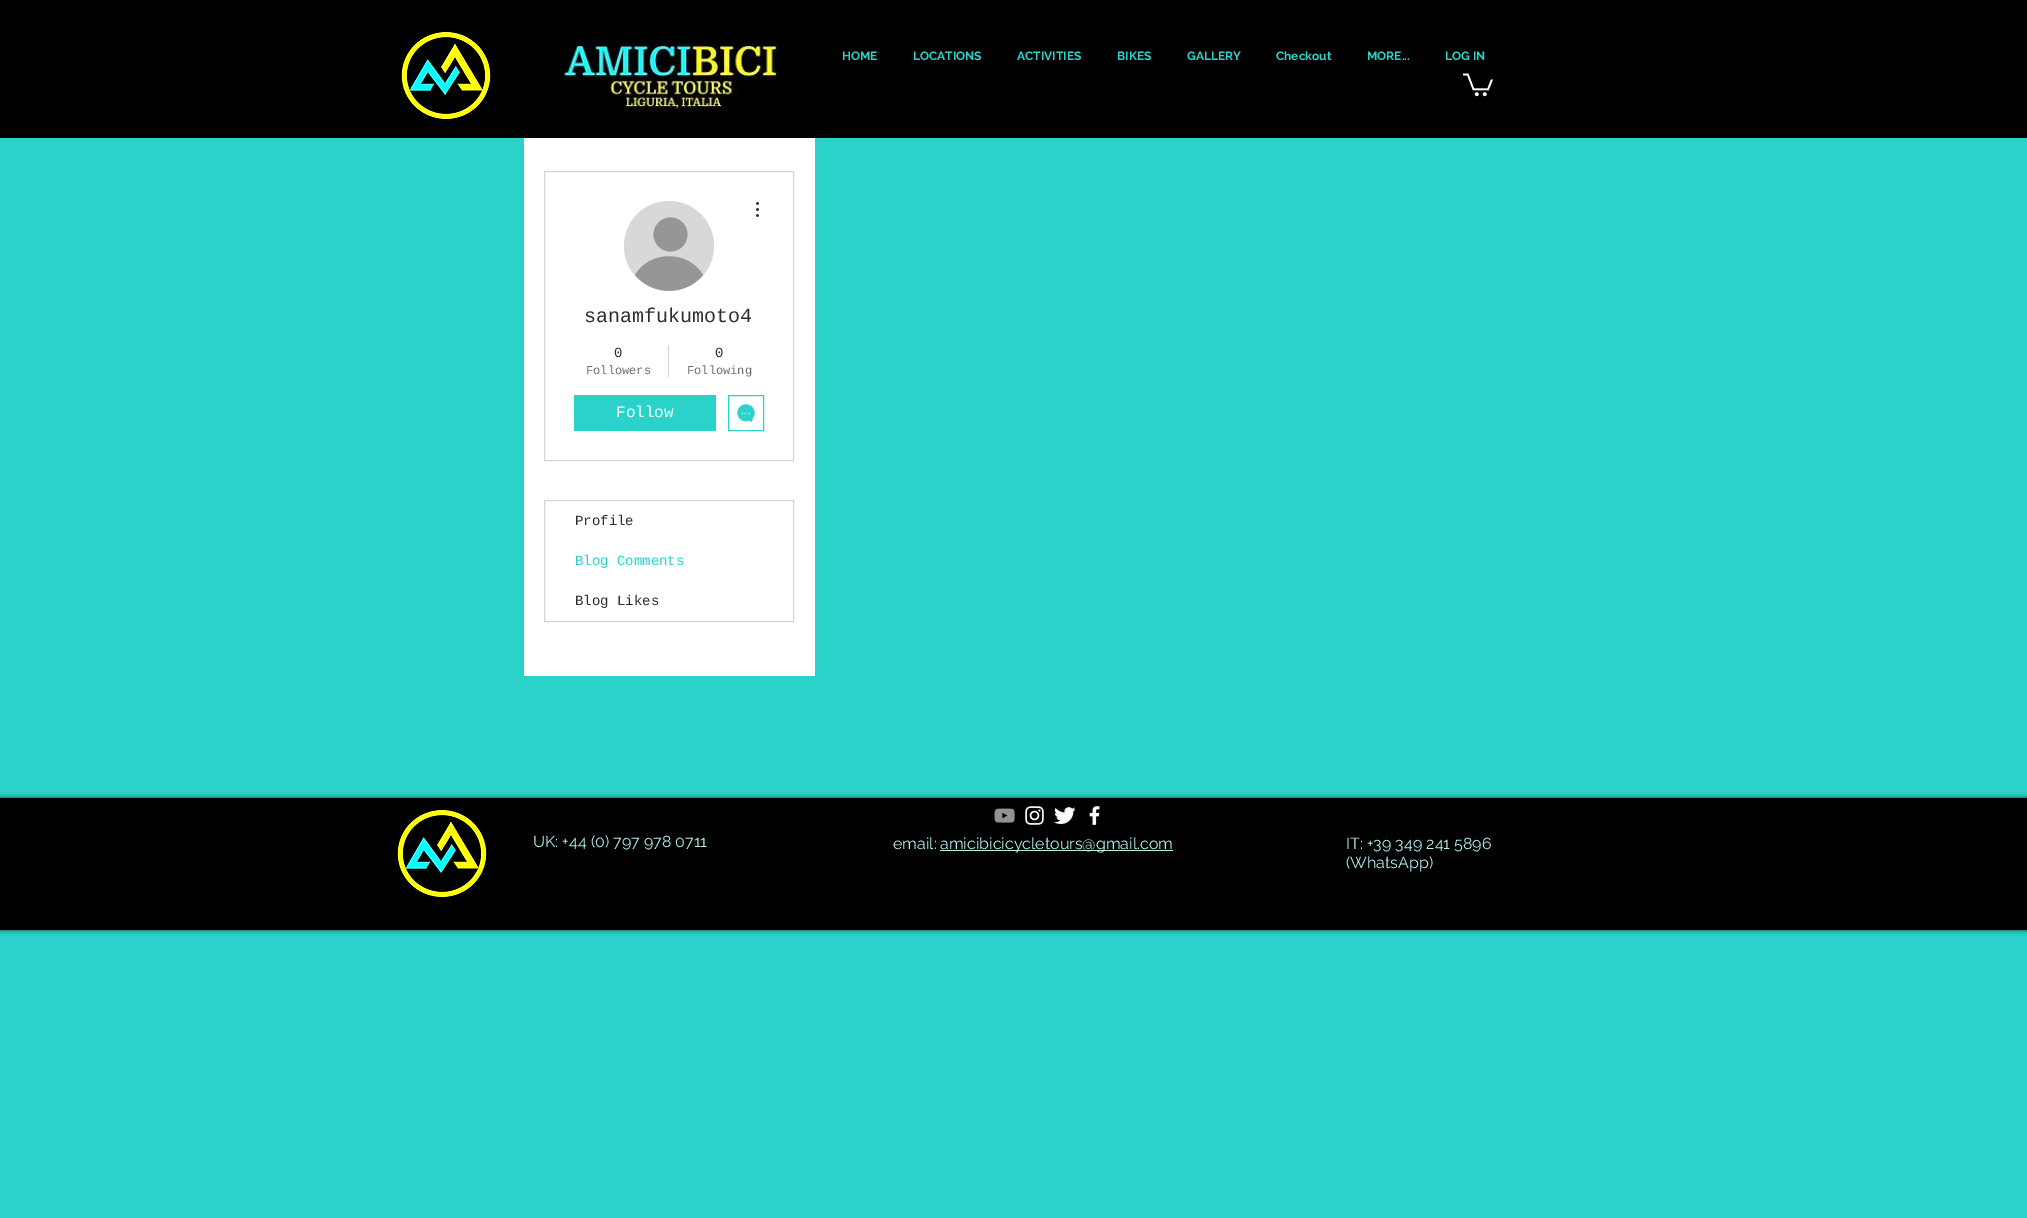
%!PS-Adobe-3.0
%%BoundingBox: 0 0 2027 1218
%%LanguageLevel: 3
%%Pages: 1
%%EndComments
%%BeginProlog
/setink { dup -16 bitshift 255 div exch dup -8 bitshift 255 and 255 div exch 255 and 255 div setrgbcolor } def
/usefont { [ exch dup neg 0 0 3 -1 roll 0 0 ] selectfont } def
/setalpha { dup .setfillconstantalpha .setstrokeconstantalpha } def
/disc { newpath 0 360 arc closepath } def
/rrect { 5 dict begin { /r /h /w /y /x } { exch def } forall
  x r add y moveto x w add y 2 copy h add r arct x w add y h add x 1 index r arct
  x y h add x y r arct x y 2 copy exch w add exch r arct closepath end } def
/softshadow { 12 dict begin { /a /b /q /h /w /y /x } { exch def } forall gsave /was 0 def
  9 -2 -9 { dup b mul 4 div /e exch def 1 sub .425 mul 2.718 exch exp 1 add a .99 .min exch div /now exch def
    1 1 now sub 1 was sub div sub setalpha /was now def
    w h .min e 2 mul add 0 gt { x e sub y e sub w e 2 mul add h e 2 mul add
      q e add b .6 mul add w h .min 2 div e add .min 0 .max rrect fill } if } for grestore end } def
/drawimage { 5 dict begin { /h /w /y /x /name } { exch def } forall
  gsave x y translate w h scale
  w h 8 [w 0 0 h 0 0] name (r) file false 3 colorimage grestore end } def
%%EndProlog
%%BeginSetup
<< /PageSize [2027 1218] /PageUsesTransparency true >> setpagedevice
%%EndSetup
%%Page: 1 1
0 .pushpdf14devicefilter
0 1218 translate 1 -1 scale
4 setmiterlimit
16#2AD2C9 setink
0 0 2027 1218 rectfill
16#000000 setink
0 0 2027 138 rectfill
(img1.raw) 401 32 90 87 drawimage
(img2.raw) 563 38 217 76 drawimage
/Raleway-Bold 12 usefont
16#2AD2C9 setink
[
    [(HOME) 842 60]
    [(LOCATIONS) 913 60]
    [(ACTIVITIES) 1017 60]
    [(BIKES) 1117 60]
    [(GALLERY) 1187 60]
    [(Checkout) 1276 60]
    [(MORE...) 1367 60]
    [(LOG IN) 1445 60]
] { aload pop moveto show } forall
(img3.raw) 1463 73 30 24 drawimage
16#FFFFFF setink
524 138 291 538 rectfill
16#D5D5D6 setink
544.5 171.5 249 289 rectstroke
16#D8D8D8 setink
669 246 45 disc fill
16#969696 setink
670.5 234.5 17 disc fill
703 275 moveto 685 296 653 296 635 275 curveto 650 250 688 250 703 275 curveto closepath fill
(img4.raw) 756 202 3 15 drawimage
/LiberationMono-Regular 20 usefont
16#2F2F30 setink
584 322 moveto (sanamfukumoto4) show
/LiberationMono-Regular 14 usefont
614 357 moveto (0) show
/LiberationMono-Regular 12 usefont
16#6D6D6E setink
586 374 moveto (Followers) show
16#D5D5D6 setink
668 345 1 32 rectfill
/LiberationMono-Regular 14 usefont
16#2F2F30 setink
715 357 moveto (0) show
/LiberationMono-Regular 12 usefont
16#6D6D6E setink
687 374 moveto (Following) show
16#2AD2C9 setink
574 395 142 36 rectfill
/LiberationMono-Regular 16 usefont
16#FFFFFF setink
616 417 moveto (Follow) show
16#2AD2C9 setink
728.5 395.5 35 35 rectstroke
(img5.raw) 737 404 18 18 drawimage
16#D5D5D6 setink
544.5 500.5 249 121 rectstroke
/LiberationMono-Regular 14 usefont
16#2F2F30 setink
575 525 moveto (Profile) show
16#2AD2C9 setink
575 565 moveto (Blog Comments) show
16#2F2F30 setink
575 605 moveto (Blog Likes) show
16#000000 setink
0 798 2027 132 0 2.5 0.7 softshadow
0 798 2027 132 rectfill
(img1.raw) 397 810 90 87 drawimage
/Raleway-Regular 16 usefont
16#B0F0ED setink
533 847 moveto (UK: +44 \(0\) 797 978 0711) show
(img6.raw) 994 808 21 15 drawimage
(img7.raw) 1025 806 19 19 drawimage
(img8.raw) 1054 807 22 18 drawimage
(img9.raw) 1089 806 11 19 drawimage
893 849 moveto (email:) show
940 850 233 1 rectfill
[
    [(amicibicicycletours@gmail.com) 940 849]
    [(IT: +39 349 241 5896) 1346 849]
    [(\(WhatsApp\)) 1346 868]
] { aload pop moveto show } forall
.poppdf14devicefilter showpage
%%EOF
